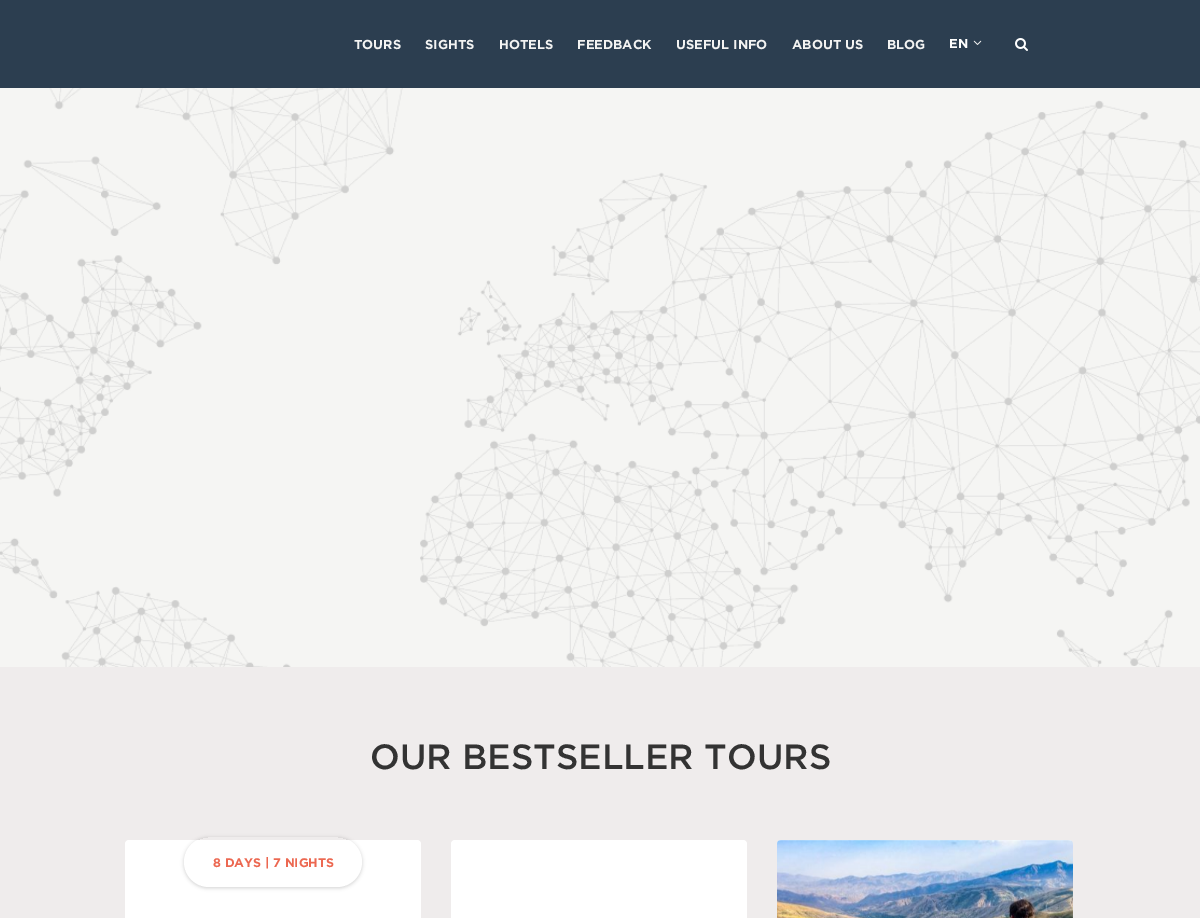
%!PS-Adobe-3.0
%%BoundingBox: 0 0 1200 918
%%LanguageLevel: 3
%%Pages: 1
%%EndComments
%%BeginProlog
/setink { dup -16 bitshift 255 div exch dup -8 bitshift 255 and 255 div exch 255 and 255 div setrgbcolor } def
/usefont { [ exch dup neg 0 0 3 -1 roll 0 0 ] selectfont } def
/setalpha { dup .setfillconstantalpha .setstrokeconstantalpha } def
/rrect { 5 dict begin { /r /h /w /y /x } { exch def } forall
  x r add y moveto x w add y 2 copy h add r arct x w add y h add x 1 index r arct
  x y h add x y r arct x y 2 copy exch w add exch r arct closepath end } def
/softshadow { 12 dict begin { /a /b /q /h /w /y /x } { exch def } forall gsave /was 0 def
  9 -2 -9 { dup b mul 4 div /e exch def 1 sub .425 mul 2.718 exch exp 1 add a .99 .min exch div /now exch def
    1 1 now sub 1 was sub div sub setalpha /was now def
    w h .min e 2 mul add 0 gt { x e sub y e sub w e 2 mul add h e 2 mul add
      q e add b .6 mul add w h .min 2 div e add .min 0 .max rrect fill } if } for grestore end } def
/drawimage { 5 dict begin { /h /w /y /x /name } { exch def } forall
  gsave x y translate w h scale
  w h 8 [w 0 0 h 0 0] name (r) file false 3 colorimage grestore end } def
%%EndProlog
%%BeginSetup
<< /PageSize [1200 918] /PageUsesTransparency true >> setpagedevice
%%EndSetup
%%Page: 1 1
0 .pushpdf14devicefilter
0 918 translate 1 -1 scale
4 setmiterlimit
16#EFECEC setink
0 0 1200 918 rectfill
16#2C3E50 setink
0 0 1200 88 rectfill
/Gotham-Bold 13 usefont
16#F3F3F2 setink
[
    [(TOURS) 354 49]
    [(SIGHTS) 425 49]
    [(HOTELS) 499 49]
    [(FEEDBACK) 577 49]
    [(USEFUL INFO) 676 49]
    [(ABOUT US) 792 49]
    [(BLOG) 887 49]
] { aload pop moveto show } forall
16#FFFFFF setink
949 48 moveto (EN) show
(img1.raw) 973 40 9 5 drawimage
(img2.raw) 1015 38 13 13 drawimage
(img3.raw) 0 88 1200 579 drawimage
/Gotham-Medium 35 usefont
16#333333 setink
370 769 moveto (OUR BESTSELLER TOURS) show
16#FFFFFF setink
125 840 296 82 4 rrect fill
gsave
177 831 moveto 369 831 lineto 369 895 lineto 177 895 lineto closepath 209 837 moveto 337 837 lineto 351 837 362 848 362 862 curveto 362 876 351 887 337 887 curveto 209 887 lineto 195 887 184 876 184 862 curveto 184 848 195 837 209 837 curveto closepath eoclip newpath
16#000000 setink
184 838 178 50 25 2 0.18 softshadow
grestore
gsave
125 840 296 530 4 rrect clip newpath
184 837 178 50 25 rrect fill
grestore
/Gotham-Bold 12.5 usefont
16#EC6851 setink
213 867 moveto (8 DAYS | 7 NIGHTS) show
16#FFFFFF setink
451 840 296 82 4 rrect fill
(img4.raw) 777 840 296 78 drawimage
.poppdf14devicefilter showpage
%%EOF
